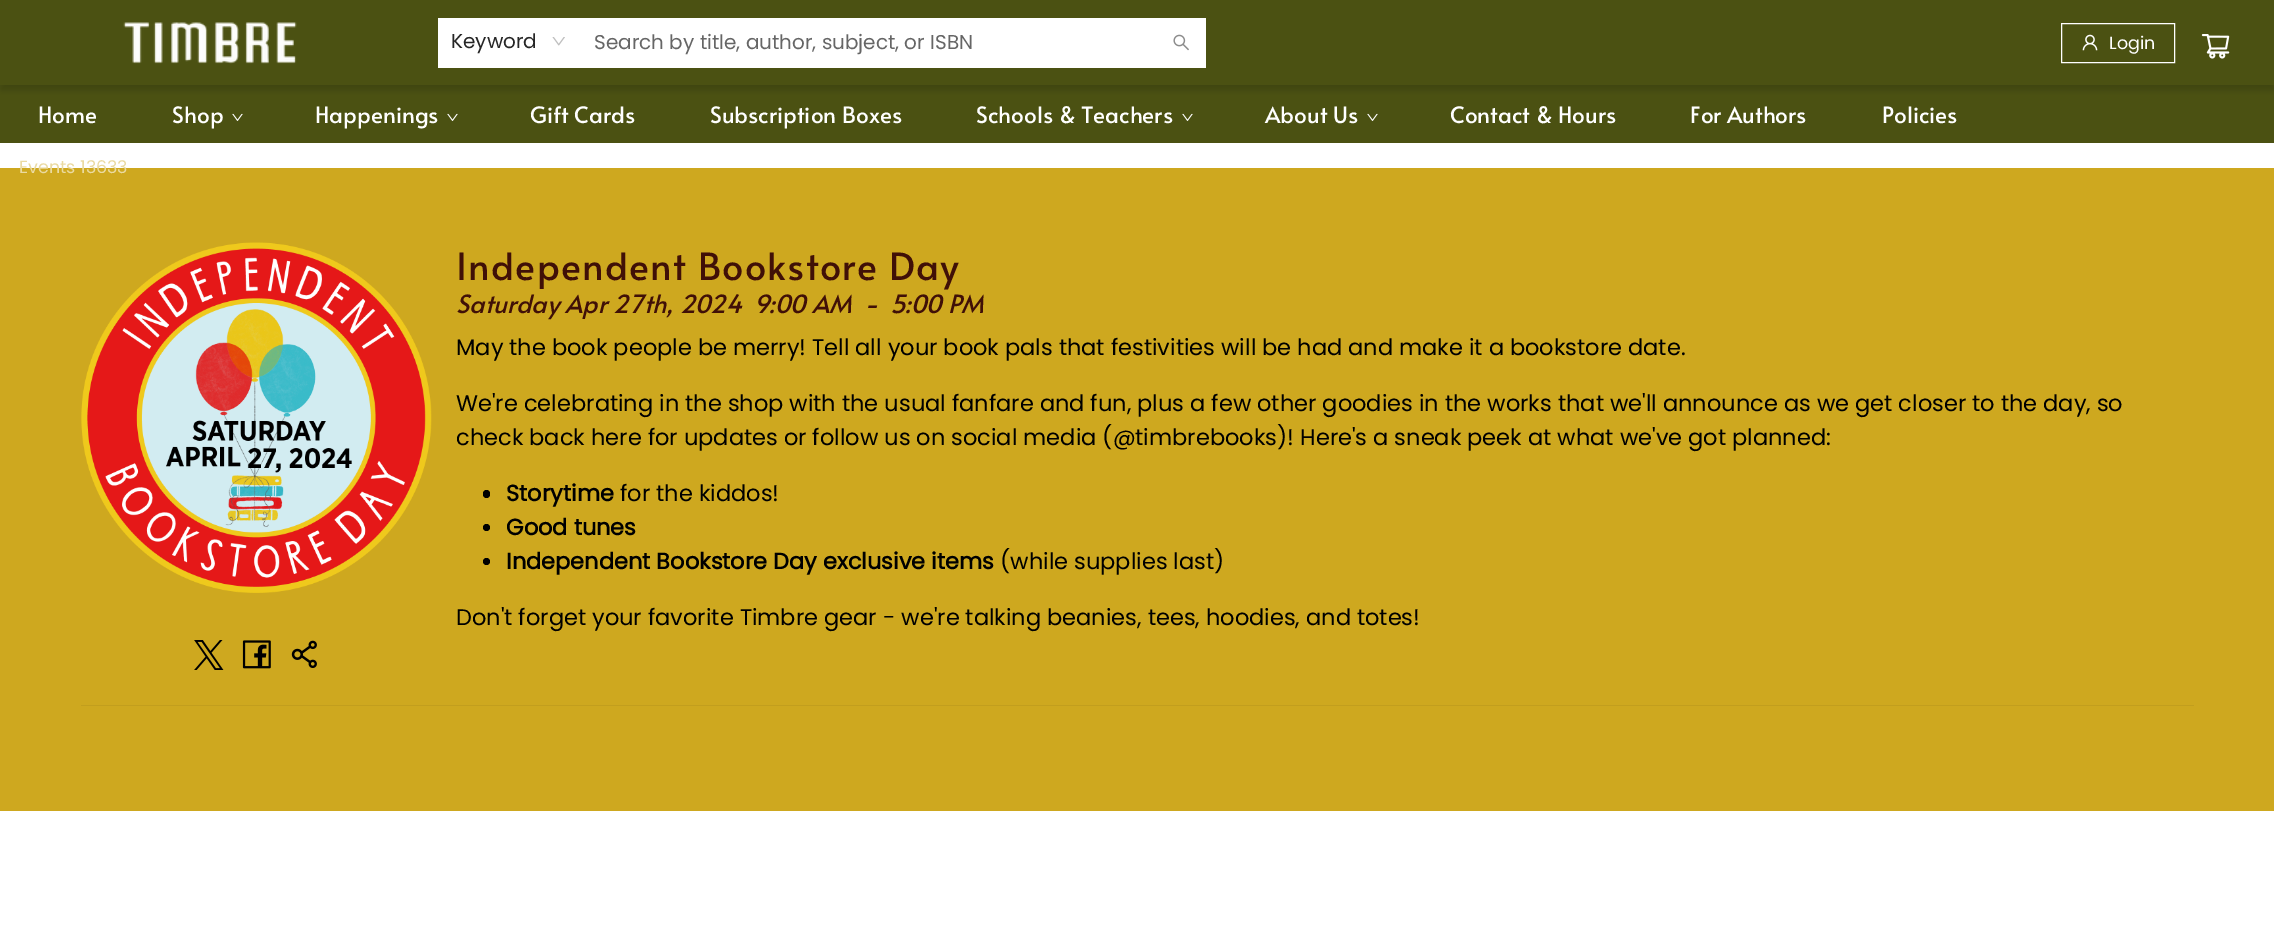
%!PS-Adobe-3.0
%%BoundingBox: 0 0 2274 927
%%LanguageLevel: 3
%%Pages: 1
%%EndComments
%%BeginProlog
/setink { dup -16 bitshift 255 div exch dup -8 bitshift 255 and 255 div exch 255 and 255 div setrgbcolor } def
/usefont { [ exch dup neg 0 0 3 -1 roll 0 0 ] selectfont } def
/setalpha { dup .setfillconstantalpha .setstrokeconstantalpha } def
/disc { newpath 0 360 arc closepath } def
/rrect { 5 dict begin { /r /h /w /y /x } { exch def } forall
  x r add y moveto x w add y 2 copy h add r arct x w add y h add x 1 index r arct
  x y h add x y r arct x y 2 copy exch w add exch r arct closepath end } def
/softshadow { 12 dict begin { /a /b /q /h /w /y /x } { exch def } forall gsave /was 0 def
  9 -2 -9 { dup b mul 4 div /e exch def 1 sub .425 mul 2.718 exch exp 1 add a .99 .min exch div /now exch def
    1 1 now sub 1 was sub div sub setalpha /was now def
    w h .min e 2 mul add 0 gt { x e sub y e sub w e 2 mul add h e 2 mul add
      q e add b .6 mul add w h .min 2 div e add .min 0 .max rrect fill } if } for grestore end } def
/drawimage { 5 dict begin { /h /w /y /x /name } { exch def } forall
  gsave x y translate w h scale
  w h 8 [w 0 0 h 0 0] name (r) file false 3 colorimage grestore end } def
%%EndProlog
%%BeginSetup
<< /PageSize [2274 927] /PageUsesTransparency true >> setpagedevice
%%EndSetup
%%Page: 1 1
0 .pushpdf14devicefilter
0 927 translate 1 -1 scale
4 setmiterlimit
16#FFFFFF setink
0 0 2274 927 rectfill
16#4B5112 setink
0 85 2274 58 rectfill
16#000000 setink
1 8 2273 82 0 3 0.15 softshadow
16#4B5112 setink
0 0 2274 85 rectfill
(img1.raw) 123 22 174 42 drawimage
16#FFFFFF setink
438 18 768 50 rectfill
/Poppins-Regular 20 usefont
16#262626 setink
451 48 moveto (Keyword) show
(img2.raw) 552 37 13 9 drawimage
16#666666 setink
594 49 moveto (Search by title, author, subject, or ISBN) show
(img3.raw) 1173 34 16 17 drawimage
16#484E11 setink
2061 25 moveto 2061 65 lineto 2175 65 lineto 2175 62 lineto 2061 62 lineto closepath fill
16#FFFFFF setink
2061.5 23.5 113 39 rectstroke
(img4.raw) 2082 34 16 17 drawimage
/Poppins-Regular 17.5 usefont
2109 49 moveto (Login) show
(img5.raw) 2201 34 29 25 drawimage
/Alata-Regular 22.5 usefont
38 123 moveto (Home) show
172 123 moveto (Shop) show
(img6.raw) 232 113 11 8 drawimage
315 123 moveto (Happenings) show
(img7.raw) 447 113 11 8 drawimage
[
    [(Gift Cards) 530 123]
    [(Subscription Boxes) 710 123]
    [(Schools & Teachers) 976 123]
] { aload pop moveto show } forall
(img7.raw) 1182 113 11 8 drawimage
1265 123 moveto (About Us) show
(img6.raw) 1367 113 11 8 drawimage
[
    [(Contact & Hours) 1450 123]
    [(For Authors) 1690 123]
    [(Policies) 1882 123]
] { aload pop moveto show } forall
16#CEA81F setink
0 168 2274 643 rectfill
/Poppins-Regular 17.5 usefont
16#EADAA1 setink
19 173 moveto (Events 13633) show
(img8.raw) 81 242 351 351 drawimage
(img9.raw) 194 640 30 30 drawimage
(img10.raw) 242 640 29 29 drawimage
(img11.raw) 291 640 26 28 drawimage
/Alata-Regular 37.5 usefont
16#401007 setink
456 280 moveto 1.25 0 (Independent Bookstore Day) ashow
/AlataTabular-Italic 25 usefont
456 313 moveto (Saturday Apr 27th, 2024) show
754 313 moveto (9:00 AM) show
/Alata-Italic 25 usefont
864 313 moveto (-) show
/AlataTabular-Italic 25 usefont
890 313 moveto (5:00 PM) show
/Poppins-Regular 22.5 usefont
16#000000 setink
[
    [(May the book people be merry! Tell all your book pals that festivities will be had and make it a bookstore date.) 456 355]
    [(We're celebrating in the shop with the usual fanfare and fun, plus a few other goodies in the works that we'll announce as we get closer to the day, so) 456 411]
    [(check back here for updates or follow us on social media \(@timbrebooks\)! Here's a sneak peek at what we've got planned:) 456 445]
] { aload pop moveto show } forall
483 490 7 8 3.5 rrect fill
/Poppins-Bold 22.5 usefont
506 501 moveto (Storytime) show
/Poppins-Regular 22.5 usefont
620 501 moveto (for the kiddos!) show
486.5 527.5 3.5 disc fill
/Poppins-Bold 22.5 usefont
506 535 moveto (Good tunes) show
486.5 561.5 3.5 disc fill
506 569 moveto (Independent Bookstore Day exclusive items) show
/Poppins-Regular 22.5 usefont
1000 569 moveto (\(while supplies last\)) show
456 625 moveto (Don't forget your favorite Timbre gear - we're talking beanies, tees, hoodies, and totes!) show
16#C29E1D setink
81 705 2113 1 rectfill
.poppdf14devicefilter showpage
%%EOF
